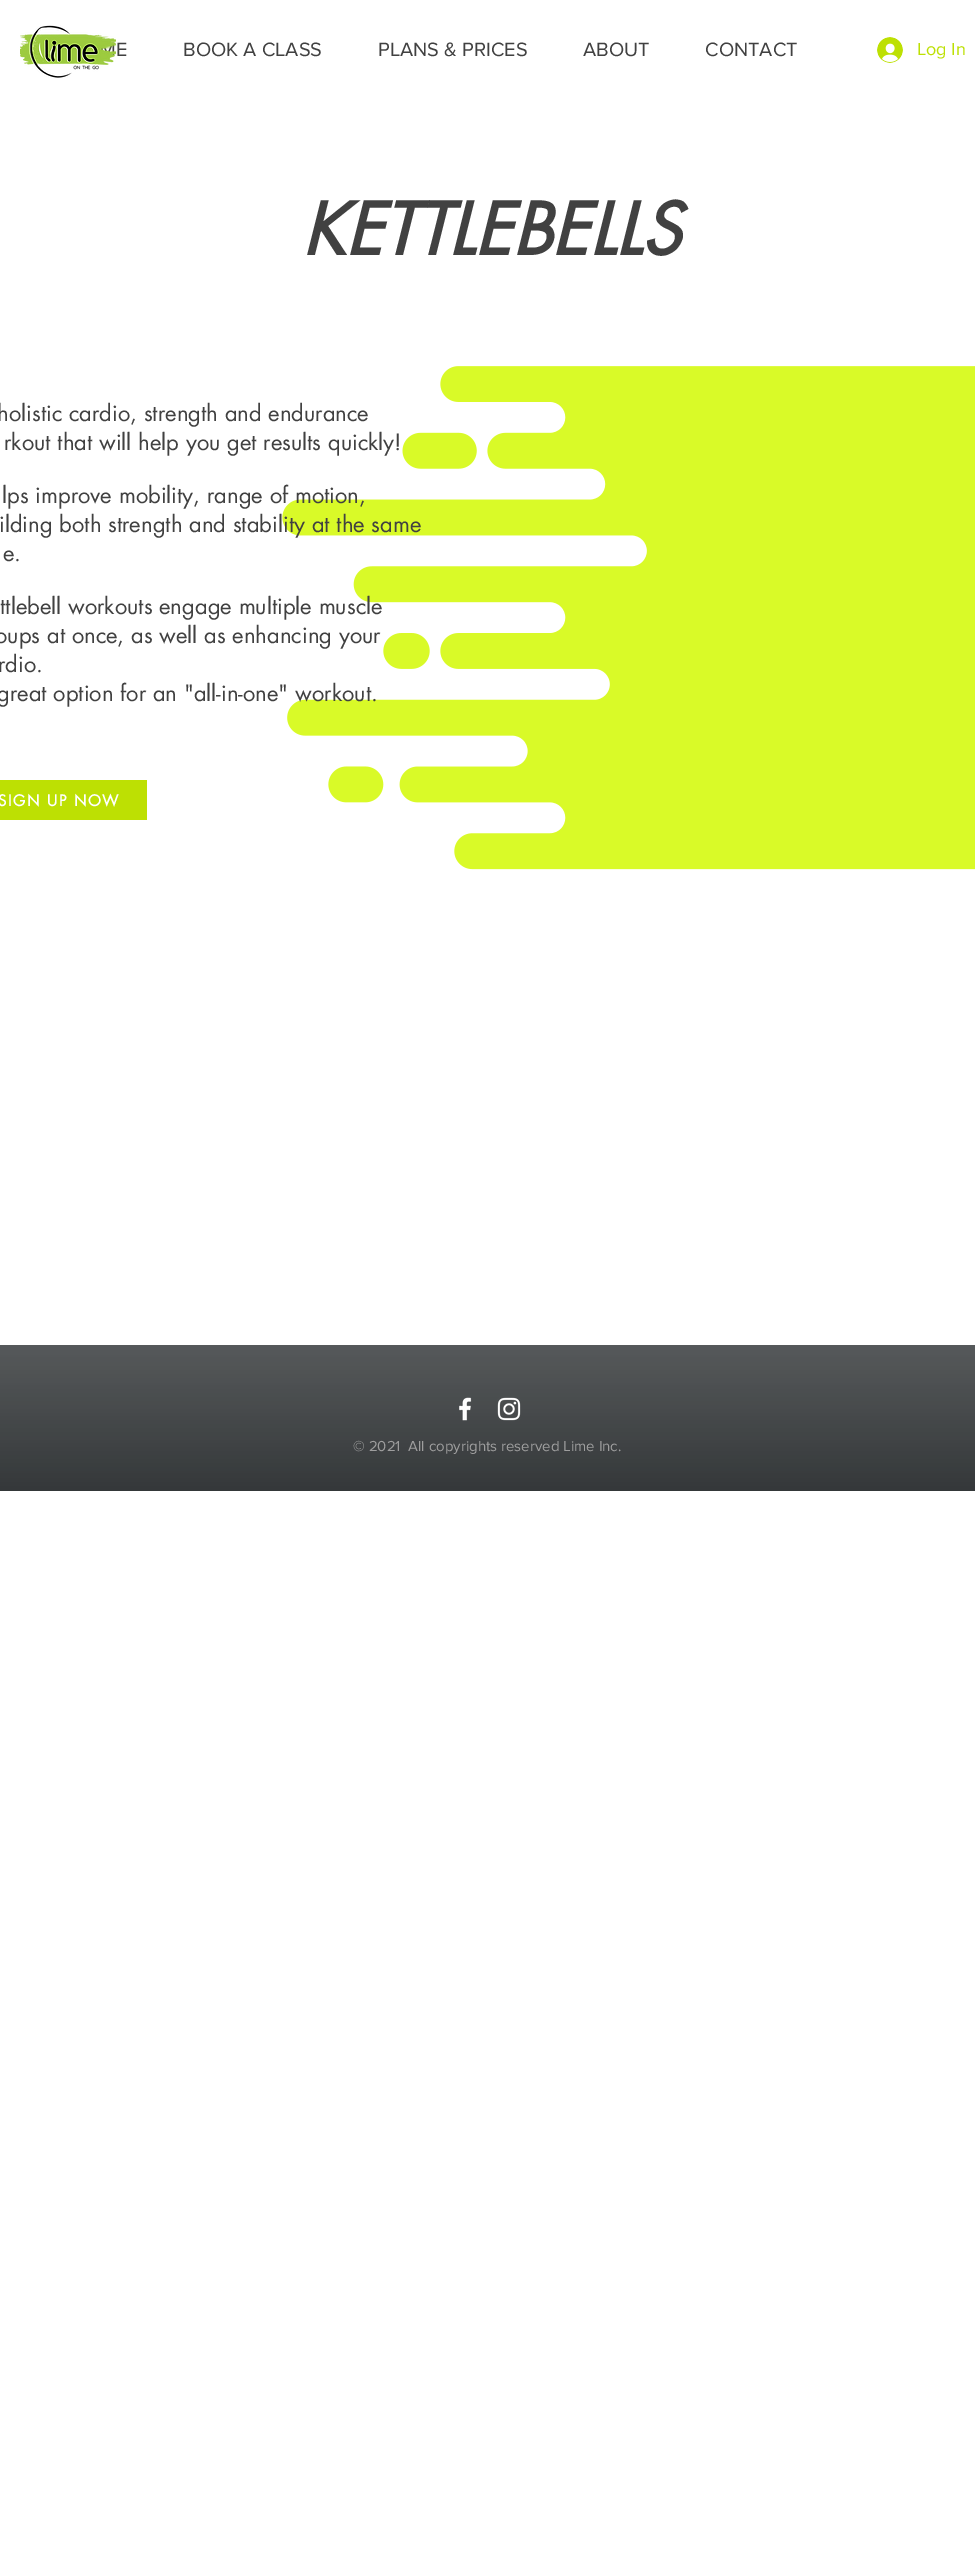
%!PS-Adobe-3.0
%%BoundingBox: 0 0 975 2567
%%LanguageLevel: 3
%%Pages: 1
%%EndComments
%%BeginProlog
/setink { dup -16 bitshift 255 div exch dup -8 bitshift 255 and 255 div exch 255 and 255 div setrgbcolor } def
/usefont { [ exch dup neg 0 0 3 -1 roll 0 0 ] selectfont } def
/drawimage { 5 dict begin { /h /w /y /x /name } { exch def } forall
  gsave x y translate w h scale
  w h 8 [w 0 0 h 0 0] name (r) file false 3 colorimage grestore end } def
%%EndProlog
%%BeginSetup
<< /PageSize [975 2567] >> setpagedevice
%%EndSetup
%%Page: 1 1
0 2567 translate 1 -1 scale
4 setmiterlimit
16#FFFFFF setink
0 0 975 2567 rectfill
(img1.raw) 20 25 96 53 drawimage
/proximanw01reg-Regular 20 usefont
16#414141 setink
[
    [(E) 116 56]
    [(BOOK A CLASS) 183 56]
    [(PLANS & PRICES) 378 56]
    [(ABOUT) 583 56]
    [(CONTACT) 705 56]
] { aload pop moveto show } forall
(img2.raw) 877 37 26 26 drawimage
/proximanw01reg-Regular 18 usefont
16#BDE003 setink
917 55 moveto (Log In) show
/futura-BoldItalic 70 usefont
16#414141 setink
302 255 moveto (KETTLEBELLS) show
(img3.raw) 282 366 693 504 drawimage
/futura-Regular 22 usefont
[
    [(holistic cardio, strength and endurance) -3 421]
    [(rkout that will help you get results quickly!) 4 450]
    [(lps improve mobility, range of motion,) 2 503]
    [(ilding both strength and stability at the same) -1 532]
    [(e.) 3 561]
    [(ttlebell workouts engage multiple muscle) 0 614]
    [(oups at once, as well as enhancing your) -5 643]
    [(rdio.) -2 672]
    [(great option for an "all-in-one" workout.) -3 701]
] { aload pop moveto show } forall
16#BDE003 setink
0 780 147 40 rectfill
/futura-Bold 15 usefont
16#FFFFFF setink
-2 806 moveto 1.5 0 (SIGN UP NOW) ashow
16#1B1F21 setink
0 1345 975 146 rectfill
(img4.raw) 0 1345 975 146 drawimage
(img5.raw) 459 1397 13 24 drawimage
(img6.raw) 497 1397 24 24 drawimage
/proximanw01reg-Regular 15 usefont
16#9E9E9E setink
353 1451 moveto (© 2021  All copyrights reserved Lime Inc.) show
showpage
%%EOF
